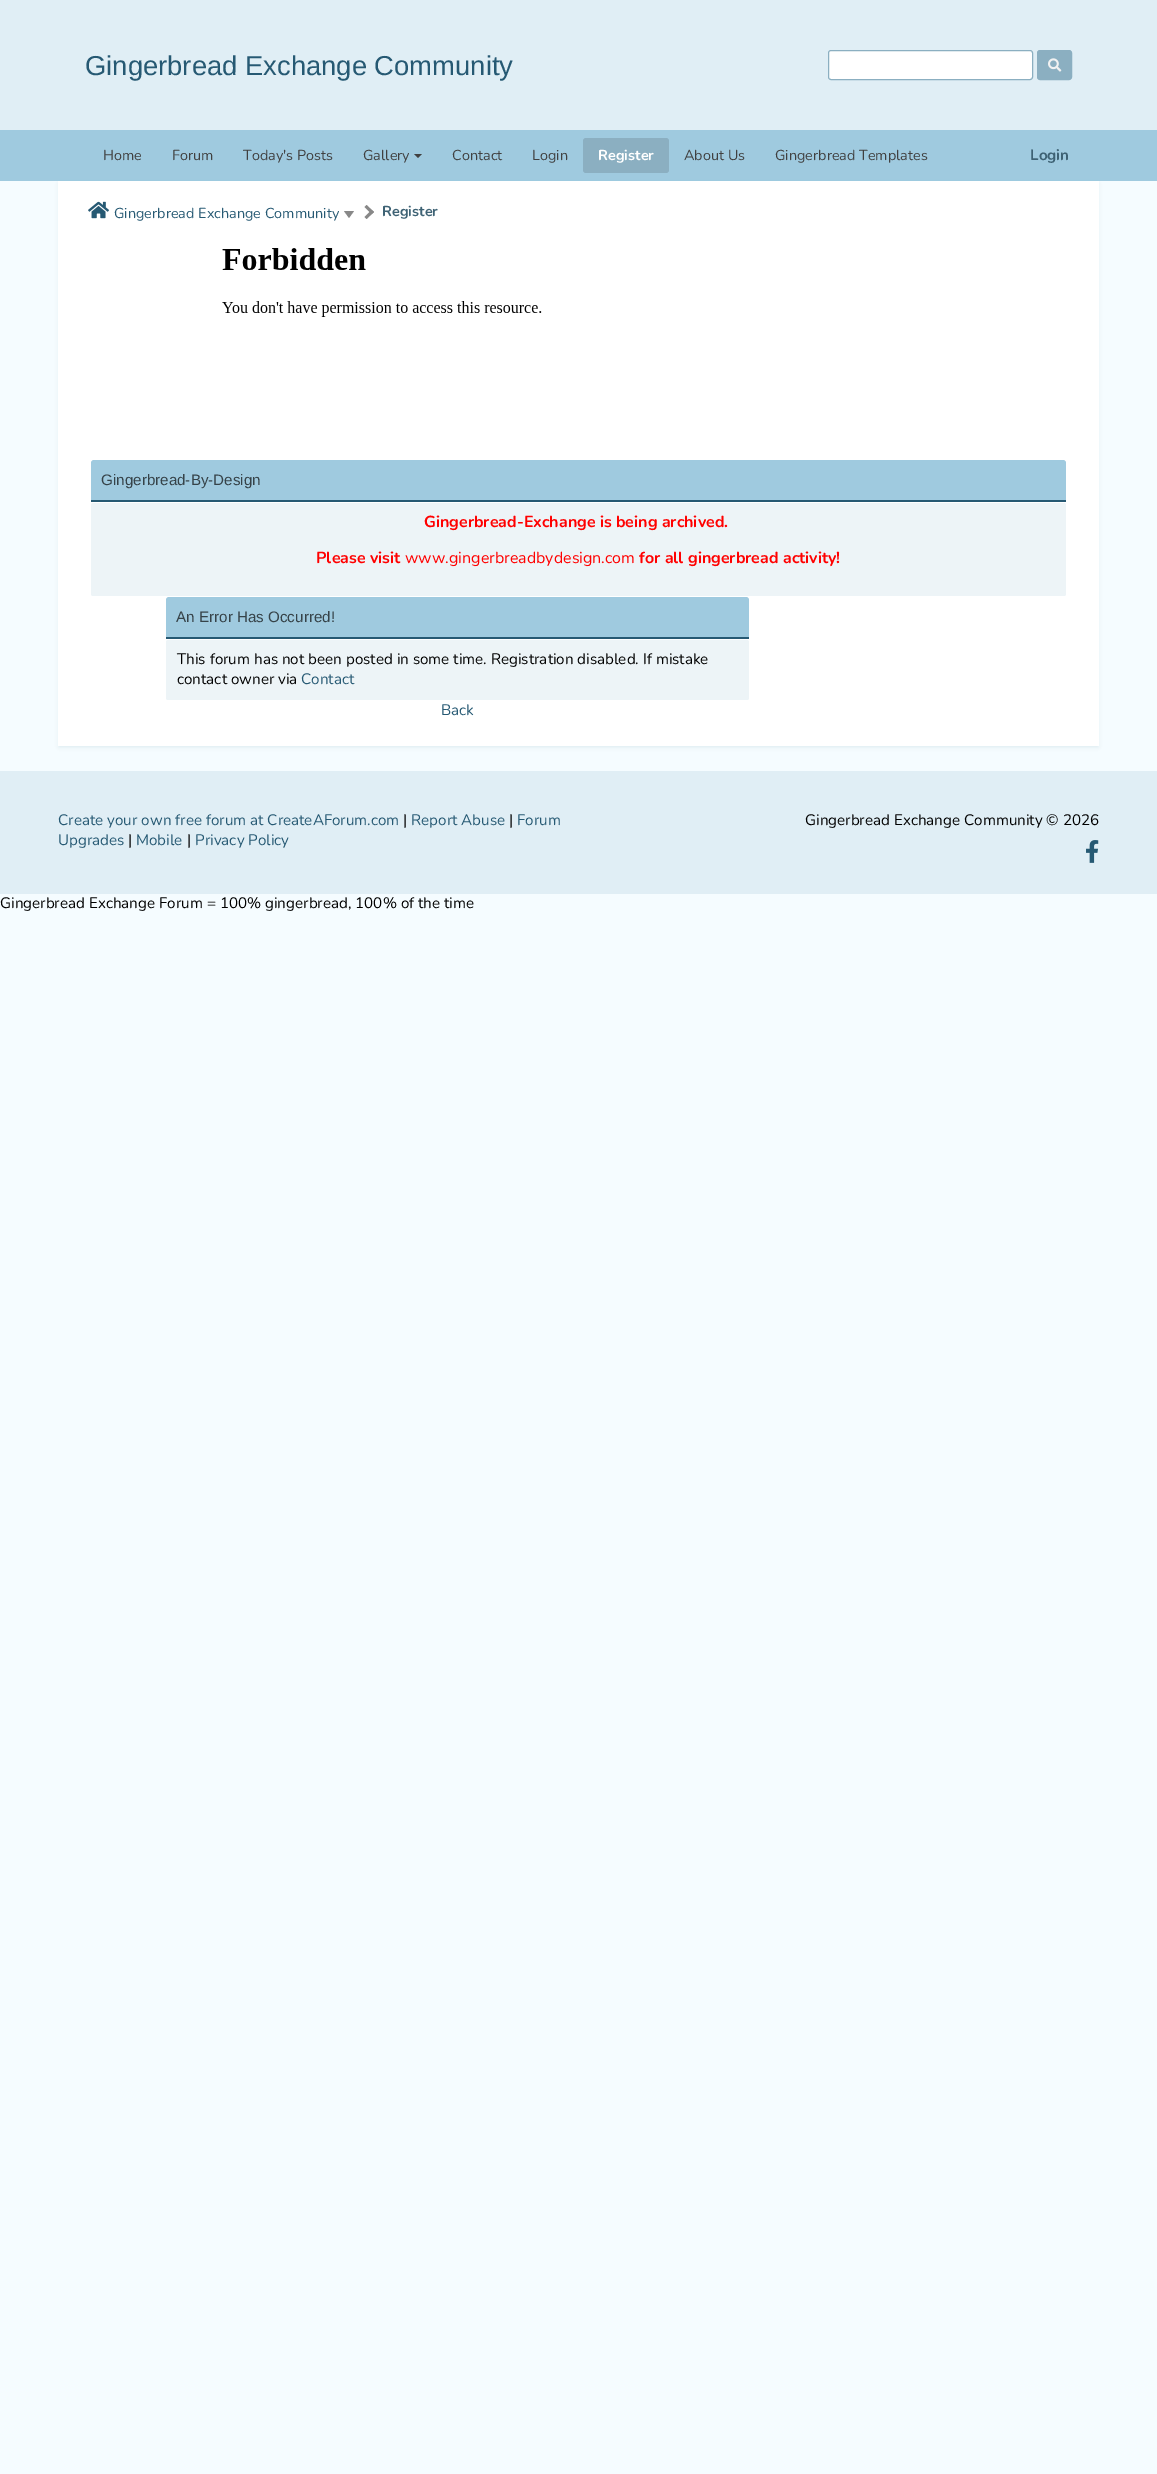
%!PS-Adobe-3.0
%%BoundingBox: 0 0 1157 2474
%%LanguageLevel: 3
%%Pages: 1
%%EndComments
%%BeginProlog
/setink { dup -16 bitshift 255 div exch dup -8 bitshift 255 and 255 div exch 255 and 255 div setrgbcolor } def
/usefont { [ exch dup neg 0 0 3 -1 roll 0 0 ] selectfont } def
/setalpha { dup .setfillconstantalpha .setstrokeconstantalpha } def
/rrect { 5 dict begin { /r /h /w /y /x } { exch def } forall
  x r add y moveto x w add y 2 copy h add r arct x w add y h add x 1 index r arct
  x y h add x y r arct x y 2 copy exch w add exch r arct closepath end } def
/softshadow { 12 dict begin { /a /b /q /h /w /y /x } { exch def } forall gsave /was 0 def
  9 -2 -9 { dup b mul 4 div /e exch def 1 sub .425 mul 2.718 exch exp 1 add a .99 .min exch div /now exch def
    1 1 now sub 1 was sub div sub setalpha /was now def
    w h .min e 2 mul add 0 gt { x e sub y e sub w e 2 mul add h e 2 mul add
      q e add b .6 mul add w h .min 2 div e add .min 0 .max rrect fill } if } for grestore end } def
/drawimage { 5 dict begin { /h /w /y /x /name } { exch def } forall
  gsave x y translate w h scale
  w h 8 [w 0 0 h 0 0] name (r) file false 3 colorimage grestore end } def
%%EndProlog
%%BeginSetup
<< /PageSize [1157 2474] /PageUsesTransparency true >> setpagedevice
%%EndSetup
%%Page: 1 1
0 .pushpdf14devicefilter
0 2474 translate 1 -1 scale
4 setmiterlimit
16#F5FCFF setink
0 0 1157 2474 rectfill
16#E0EEF5 setink
0 0 1157 130 rectfill
/LiberationSans-Regular 27.4 usefont
16#265973 setink
85 75 moveto (Gingerbread Exchange Community) show
16#FFFFFF setink
828.5 50.5 204 29 2.5 rrect gsave fill grestore
16#8BAFC1 setink
stroke
1037.5 50.5 34 29 2.5 rrect gsave fill grestore
stroke
(img1.raw) 1048 58 14 14 drawimage
16#9FCADF setink
0 130 1157 51 rectfill
/Nunito-Regular 14.4 usefont
16#404040 setink
[
    [(Home) 103 160]
    [(Forum) 172 160]
    [(Today's Posts) 243 160]
    [(Gallery) 363 160]
] { aload pop moveto show } forall
414 154 moveto 422 154 lineto 418 158 lineto closepath fill
452 160 moveto (Contact) show
532 160 moveto (Login) show
16#8BAFC1 setink
583 138 86 35 3 rrect fill
/Nunito-Bold 14.4 usefont
16#FFFFFF setink
598 160 moveto (Register) show
/Nunito-Regular 14.4 usefont
16#404040 setink
684 160 moveto (About Us) show
775 160 moveto (Gingerbread Templates) show
/Nunito-Bold 15.2 usefont
16#3E6274 setink
1030 160 moveto (Login) show
16#004C75 setink
59 184 1039 563 0 2 0.1 softshadow
16#FFFFFF setink
58 181 1041 565 rectfill
(img2.raw) 88 201 21 18 drawimage
/Nunito-Regular 14.4 usefont
16#265973 setink
114 218 moveto (Gingerbread Exchange Community) show
16#888888 setink
344 211 moveto 354 211 lineto 349 218 lineto closepath fill
364.5 207 moveto 366.5 205 lineto 374 212 lineto 371.5 214 lineto closepath fill
364.5 217 moveto 371.5 210 lineto 374 212 lineto 366.5 219 lineto closepath fill
/Nunito-Bold 14.4 usefont
16#3E6274 setink
382 216 moveto (Register) show
(img3.raw) 222 248 320 69 drawimage
gsave
91 460 975 42 3 rrect clip newpath
16#9FCADF setink
94 460 moveto 1063 460 lineto 1064.5 460 1066 461.5 1066 463 curveto 1066 500 lineto 91 500 lineto 91 463 lineto 91 461.5 92.5 460 94 460 curveto closepath fill
16#265973 setink
91 500 975 2 rectfill
grestore
/LiberationSans-Regular 15.2 usefont
16#364349 setink
101 485 moveto (Gingerbread-By-Design) show
16#EDF4F7 setink
91 503 975 93 2 rrect fill
/Nunito-Bold 16 usefont
16#FF0000 setink
424 527 moveto (Gingerbread-Exchange is being archived.) show
316 563 moveto (Please visit) show
/Nunito-Regular 16 usefont
405 563 moveto (www.gingerbreadbydesign.com) show
/Nunito-Bold 16 usefont
639 563 moveto (for all gingerbread activity!) show
gsave
166 597 583 42 3 rrect clip newpath
16#9FCADF setink
169 597 moveto 746 597 lineto 747.5 597 749 598.5 749 600 curveto 749 637 lineto 166 637 lineto 166 600 lineto 166 598.5 167.5 597 169 597 curveto closepath fill
16#265973 setink
166 637 583 2 rectfill
grestore
/LiberationSans-Regular 15.2 usefont
16#364349 setink
176 622 moveto (An Error Has Occurred!) show
16#EDF4F7 setink
166 640 583 60 2 rrect fill
/Nunito-Regular 15.2 usefont
16#000000 setink
177 664 moveto (This forum has not been posted in some time. Registration disabled. If mistake) show
177 684 moveto (contact owner via) show
16#265973 setink
301 684 moveto (Contact) show
441 715 moveto (Back) show
16#E0EEF5 setink
0 771 1157 123 rectfill
16#265973 setink
58 825 moveto (Create your own free forum at CreateAForum.com) show
16#000000 setink
403 825 moveto (|) show
16#265973 setink
411 825 moveto (Report Abuse) show
16#000000 setink
509 825 moveto (|) show
16#265973 setink
517 825 moveto (Forum) show
58 845 moveto (Upgrades) show
16#000000 setink
128 845 moveto (|) show
16#265973 setink
136 845 moveto (Mobile) show
16#000000 setink
187 845 moveto (|) show
16#265973 setink
195 845 moveto (Privacy Policy) show
16#000000 setink
805 825 moveto (Gingerbread Exchange Community © 2026) show
(img4.raw) 1086 840 13 23 drawimage
0 908 moveto (Gingerbread Exchange Forum = 100% gingerbread, 100% of the time) show
.poppdf14devicefilter showpage
%%EOF
